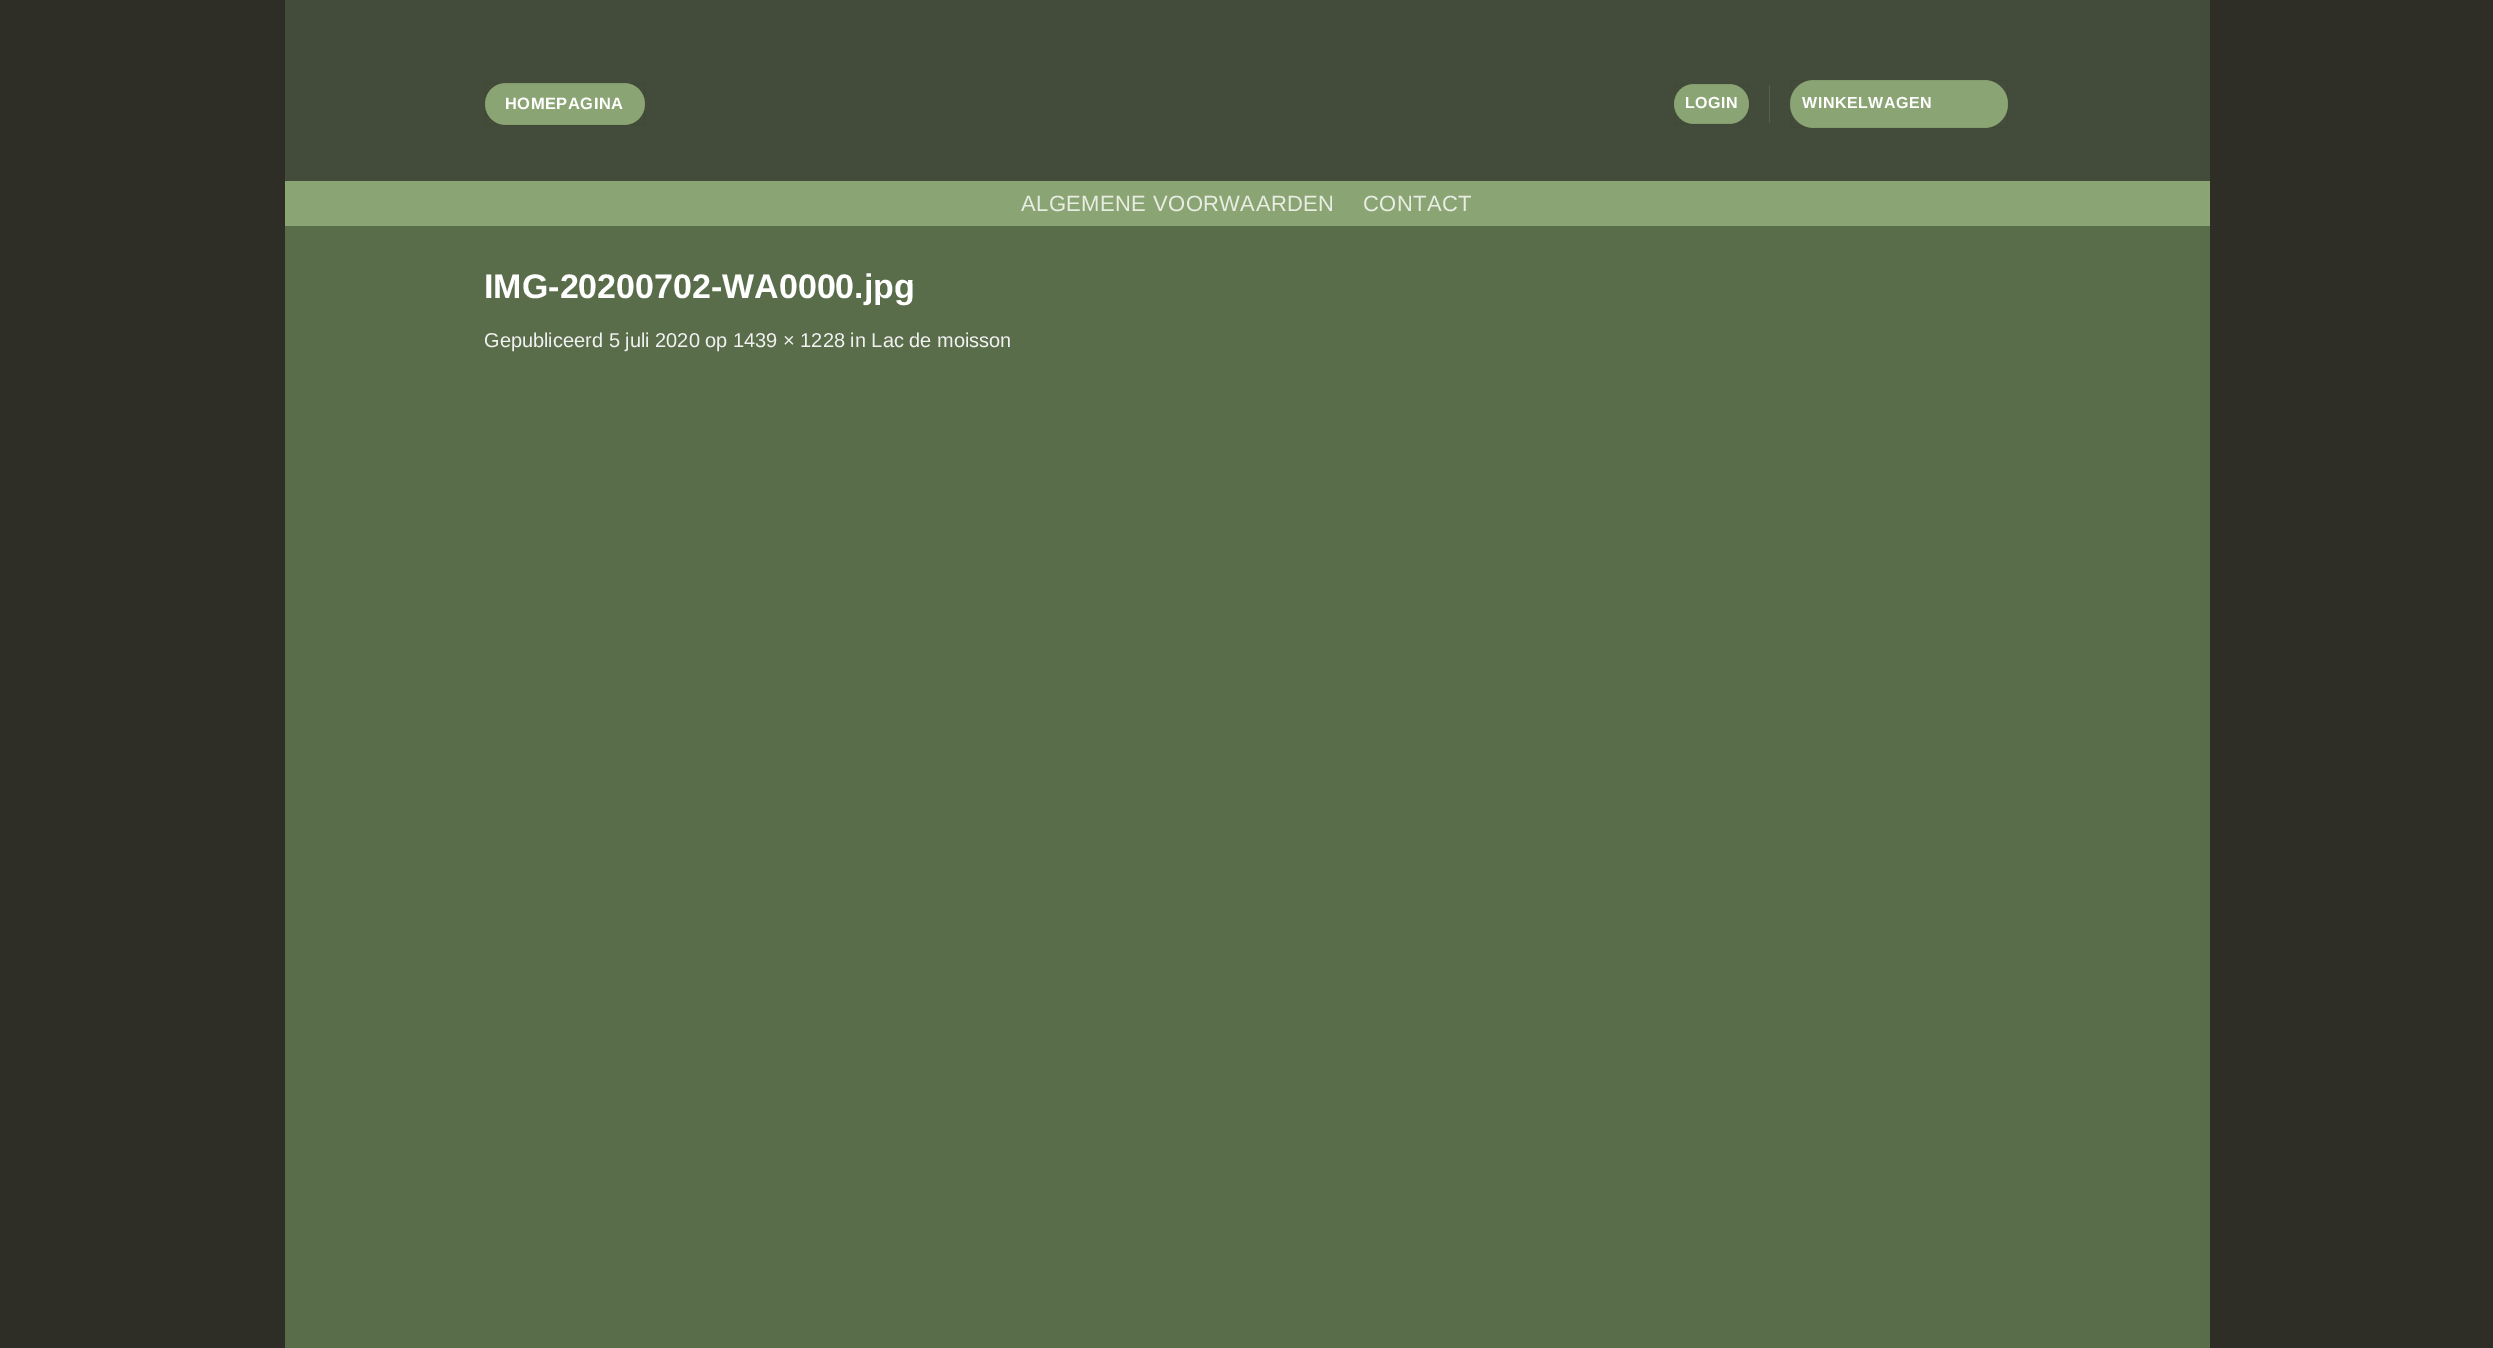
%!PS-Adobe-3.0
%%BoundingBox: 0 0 2493 1348
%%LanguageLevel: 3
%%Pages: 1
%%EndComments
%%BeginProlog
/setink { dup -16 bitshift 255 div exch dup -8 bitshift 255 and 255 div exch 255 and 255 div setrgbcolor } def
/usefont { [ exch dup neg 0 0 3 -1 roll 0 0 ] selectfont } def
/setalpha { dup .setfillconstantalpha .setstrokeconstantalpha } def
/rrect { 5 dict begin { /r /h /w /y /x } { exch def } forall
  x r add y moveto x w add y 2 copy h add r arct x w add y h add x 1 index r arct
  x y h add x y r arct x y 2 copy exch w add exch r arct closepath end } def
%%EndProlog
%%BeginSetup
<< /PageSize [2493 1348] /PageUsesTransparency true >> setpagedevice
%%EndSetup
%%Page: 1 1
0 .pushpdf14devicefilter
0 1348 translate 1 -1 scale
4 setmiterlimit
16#2E2E27 setink
0 0 2493 1348 rectfill
16#434C3A setink
285 0 1925 181 rectfill
16#8BA474 setink
485 83 160 42 21 rrect fill
0.05 setalpha
16#000000 setink
485.5 83.5 159 41 rectstroke
/LiberationSans-Bold 16.5 usefont
1 setalpha
16#FFFFFF setink
505 109 moveto 0.5 0 (HOMEPAGINA) ashow
16#8BA474 setink
1674 84 75 40 20 rrect fill
0.05 setalpha
16#000000 setink
1674.5 84.5 74 39 rectstroke
/LiberationSans-Bold 16 usefont
1 setalpha
16#FFFFFF setink
1685 108 moveto 0.5 0 (LOGIN) ashow
16#565E4E setink
1769 85 1 38 rectfill
16#8BA474 setink
1790 80 218 48 24 rrect fill
0.05 setalpha
16#000000 setink
1790.5 80.5 217 47 rectstroke
1 setalpha
16#FFFFFF setink
1802 108 moveto 0.5 0 (WINKELWAGEN) ashow
16#8BA474 setink
285 181 1925 45 rectfill
/LiberationSans-Regular 22 usefont
16#E8EDE3 setink
1021 211 moveto 0.4 0 (ALGEMENE VOORWAARDEN) ashow
1363 211 moveto 0.4 0 (CONTACT) ashow
16#5A6D4A setink
285 226 1925 1122 rectfill
/LiberationSans-Bold 34 usefont
16#FFFFFF setink
484 298 moveto (IMG-20200702-WA0000.jpg) show
/LiberationSans-Regular 20 usefont
16#F1F1F1 setink
484 347 moveto (Gepubliceerd 5 juli 2020 op 1439 × 1228 in Lac de moisson) show
.poppdf14devicefilter showpage
%%EOF
